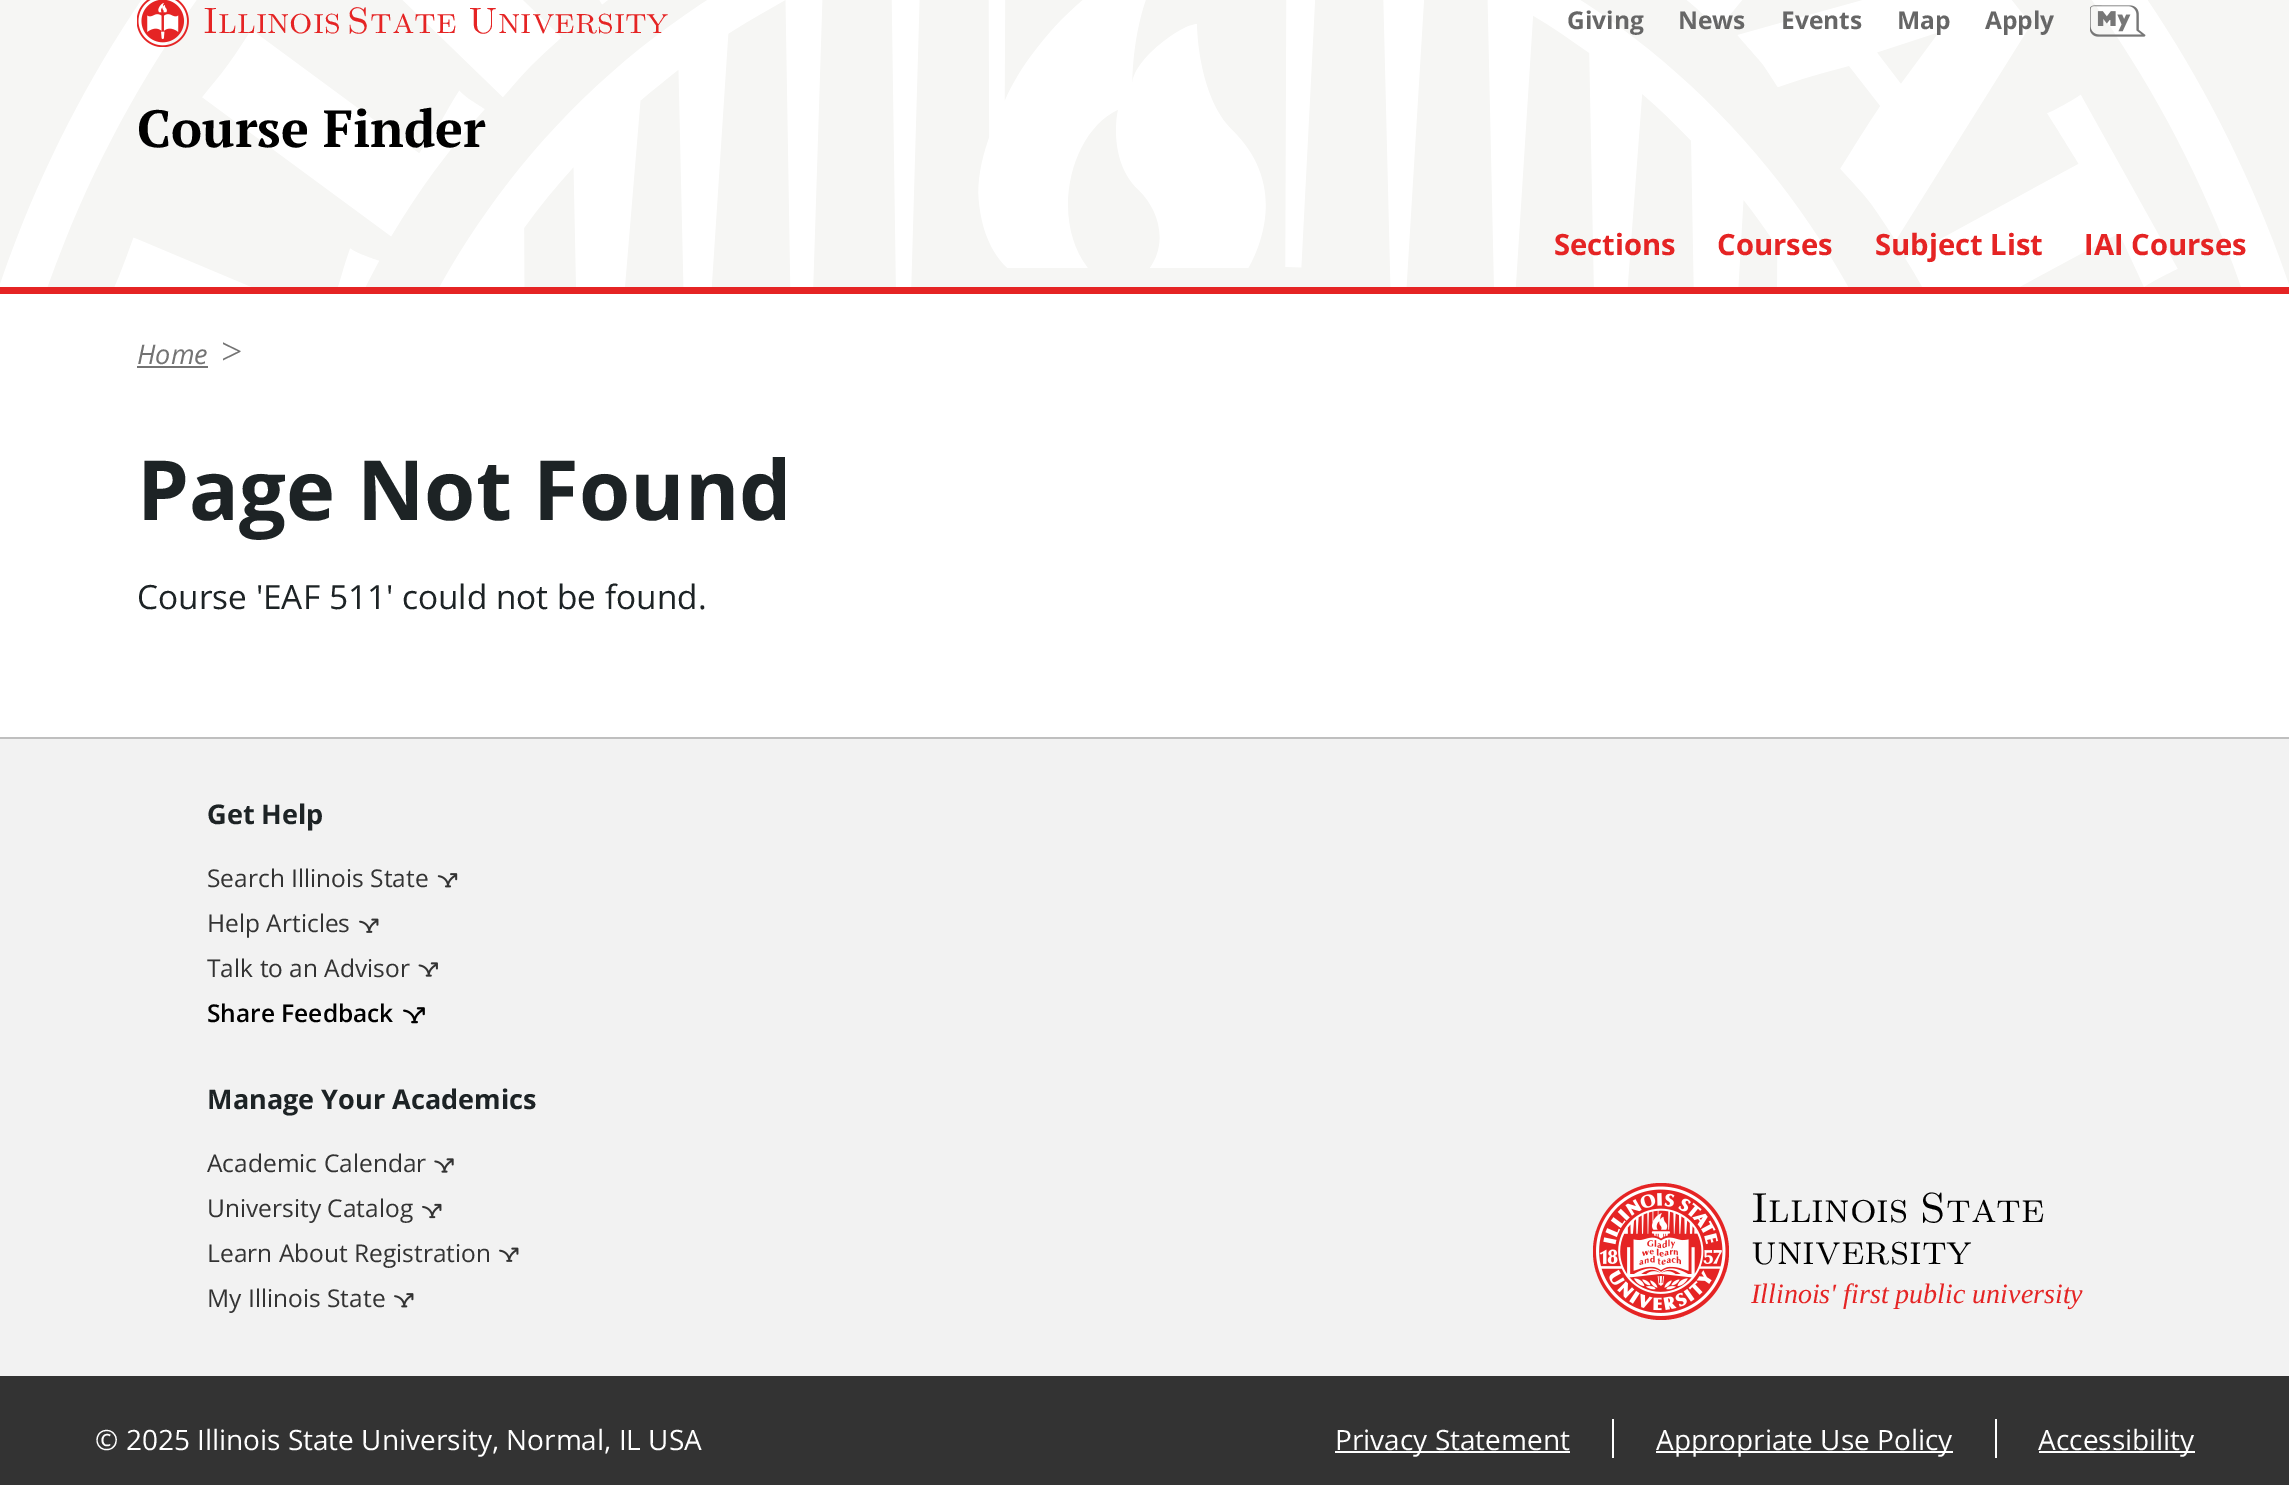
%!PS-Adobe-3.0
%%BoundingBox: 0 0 2289 1485
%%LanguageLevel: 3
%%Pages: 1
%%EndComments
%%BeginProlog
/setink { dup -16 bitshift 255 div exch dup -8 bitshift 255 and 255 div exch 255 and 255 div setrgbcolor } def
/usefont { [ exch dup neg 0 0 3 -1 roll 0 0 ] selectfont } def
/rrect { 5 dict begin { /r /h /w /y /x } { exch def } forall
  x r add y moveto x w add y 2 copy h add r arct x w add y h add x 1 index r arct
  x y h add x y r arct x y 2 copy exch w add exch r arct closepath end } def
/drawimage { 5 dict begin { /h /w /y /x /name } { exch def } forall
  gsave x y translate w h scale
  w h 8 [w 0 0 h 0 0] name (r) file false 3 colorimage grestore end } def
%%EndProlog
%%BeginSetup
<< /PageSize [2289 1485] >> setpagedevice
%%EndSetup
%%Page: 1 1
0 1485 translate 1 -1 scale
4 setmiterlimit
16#FFFFFF setink
0 0 2289 1485 rectfill
(img1.raw) 0 0 2289 287 drawimage
(img2.raw) 137 0 52 47 drawimage
/LatinModernRomanCaps-Regular 36.75 usefont
16#E52424 setink
203 33 moveto -7 0 32 (Illinois State) widthshow
468 33 moveto (University) show
/OpenSans-Bold 24.5 usefont
16#666666 setink
[
    [(Giving) 1567 29]
    [(News) 1678 29]
    [(Events) 1781 29]
    [(Map) 1897 29]
    [(Apply) 1985 29]
] { aload pop moveto show } forall
(img3.raw) 2090 5 56 32 drawimage
16#E52424 setink
0 287 2289 7 rectfill
/PTSerif-Bold 52.25 usefont
16#000000 setink
137 147 moveto (Course Finder) show
/OpenSans-Bold 29.25 usefont
16#E52424 setink
[
    [(Sections) 1554 255]
    [(Courses) 1717 255]
    [(Subject List) 1875 255]
    [(IAI Courses) 2084 255]
] { aload pop moveto show } forall
/OpenSans-Italic 27.1 usefont
16#737373 setink
137 364 moveto (Home) show
137 366 71 2 rectfill
/LiberationSerif-Regular 38 usefont
221 364 moveto (>) show
/OpenSans-Bold 83 usefont
16#1D2325 setink
137 520 moveto (Page Not Found) show
/OpenSans-Regular 33.4 usefont
137 609 moveto (Course 'EAF 511' could not be found.) show
16#F2F2F2 setink
0 739 2289 637 rectfill
16#BFBFBF setink
0 737 2289 2 rectfill
/OpenSans-Bold 27.1 usefont
16#1D2325 setink
207 824 moveto (Get Help) show
/OpenSans-Regular 24.5 usefont
16#333333 setink
207 887 moveto (Search Illinois State) show
(img4.raw) 437 873 21 15 drawimage
207 932 moveto (Help Articles) show
(img5.raw) 359 918 20 15 drawimage
207 977 moveto (Talk to an Advisor) show
(img6.raw) 418 962 20 15 drawimage
/OpenSans-SemiBold 24.5 usefont
16#000000 setink
207 1022 moveto (Share Feedback) show
(img7.raw) 403 1007 22 17 drawimage
/OpenSans-Bold 27.1 usefont
16#1D2325 setink
207 1109 moveto (Manage Your Academics) show
/OpenSans-Regular 24.5 usefont
16#333333 setink
207 1172 moveto (Academic Calendar) show
(img8.raw) 434 1158 20 15 drawimage
207 1217 moveto (University Catalog) show
(img9.raw) 422 1203 20 16 drawimage
207 1262 moveto (Learn About Registration) show
(img5.raw) 499 1247 20 15 drawimage
207 1307 moveto (My Illinois State) show
(img10.raw) 394 1293 20 15 drawimage
16#E52424 setink
1593 1183 136 137 68 rrect fill
(img11.raw) 1596 1186 130 130 drawimage
/LatinModernRomanCaps-Regular 42 usefont
16#000000 setink
1751 1222 moveto -4 0 32 (Illinois State) widthshow
1751 1264 moveto (university) show
/LiberationSerif-Italic 28 usefont
16#E52424 setink
1751 1303 moveto (Illinois' first public university) show
16#333333 setink
0 1376 2289 109 rectfill
/OpenSans-Regular 28 usefont
16#FFFFFF setink
95 1450 moveto (© 2025 Illinois State University, Normal, IL USA) show
1335 1451 235 2 rectfill
1335 1450 moveto (Privacy Statement) show
1612 1419 2 39 rectfill
1656 1451 297 2 rectfill
1656 1450 moveto (Appropriate Use Policy) show
1995 1419 2 39 rectfill
2039 1451 156 2 rectfill
2038 1450 moveto (Accessibility) show
showpage
%%EOF
